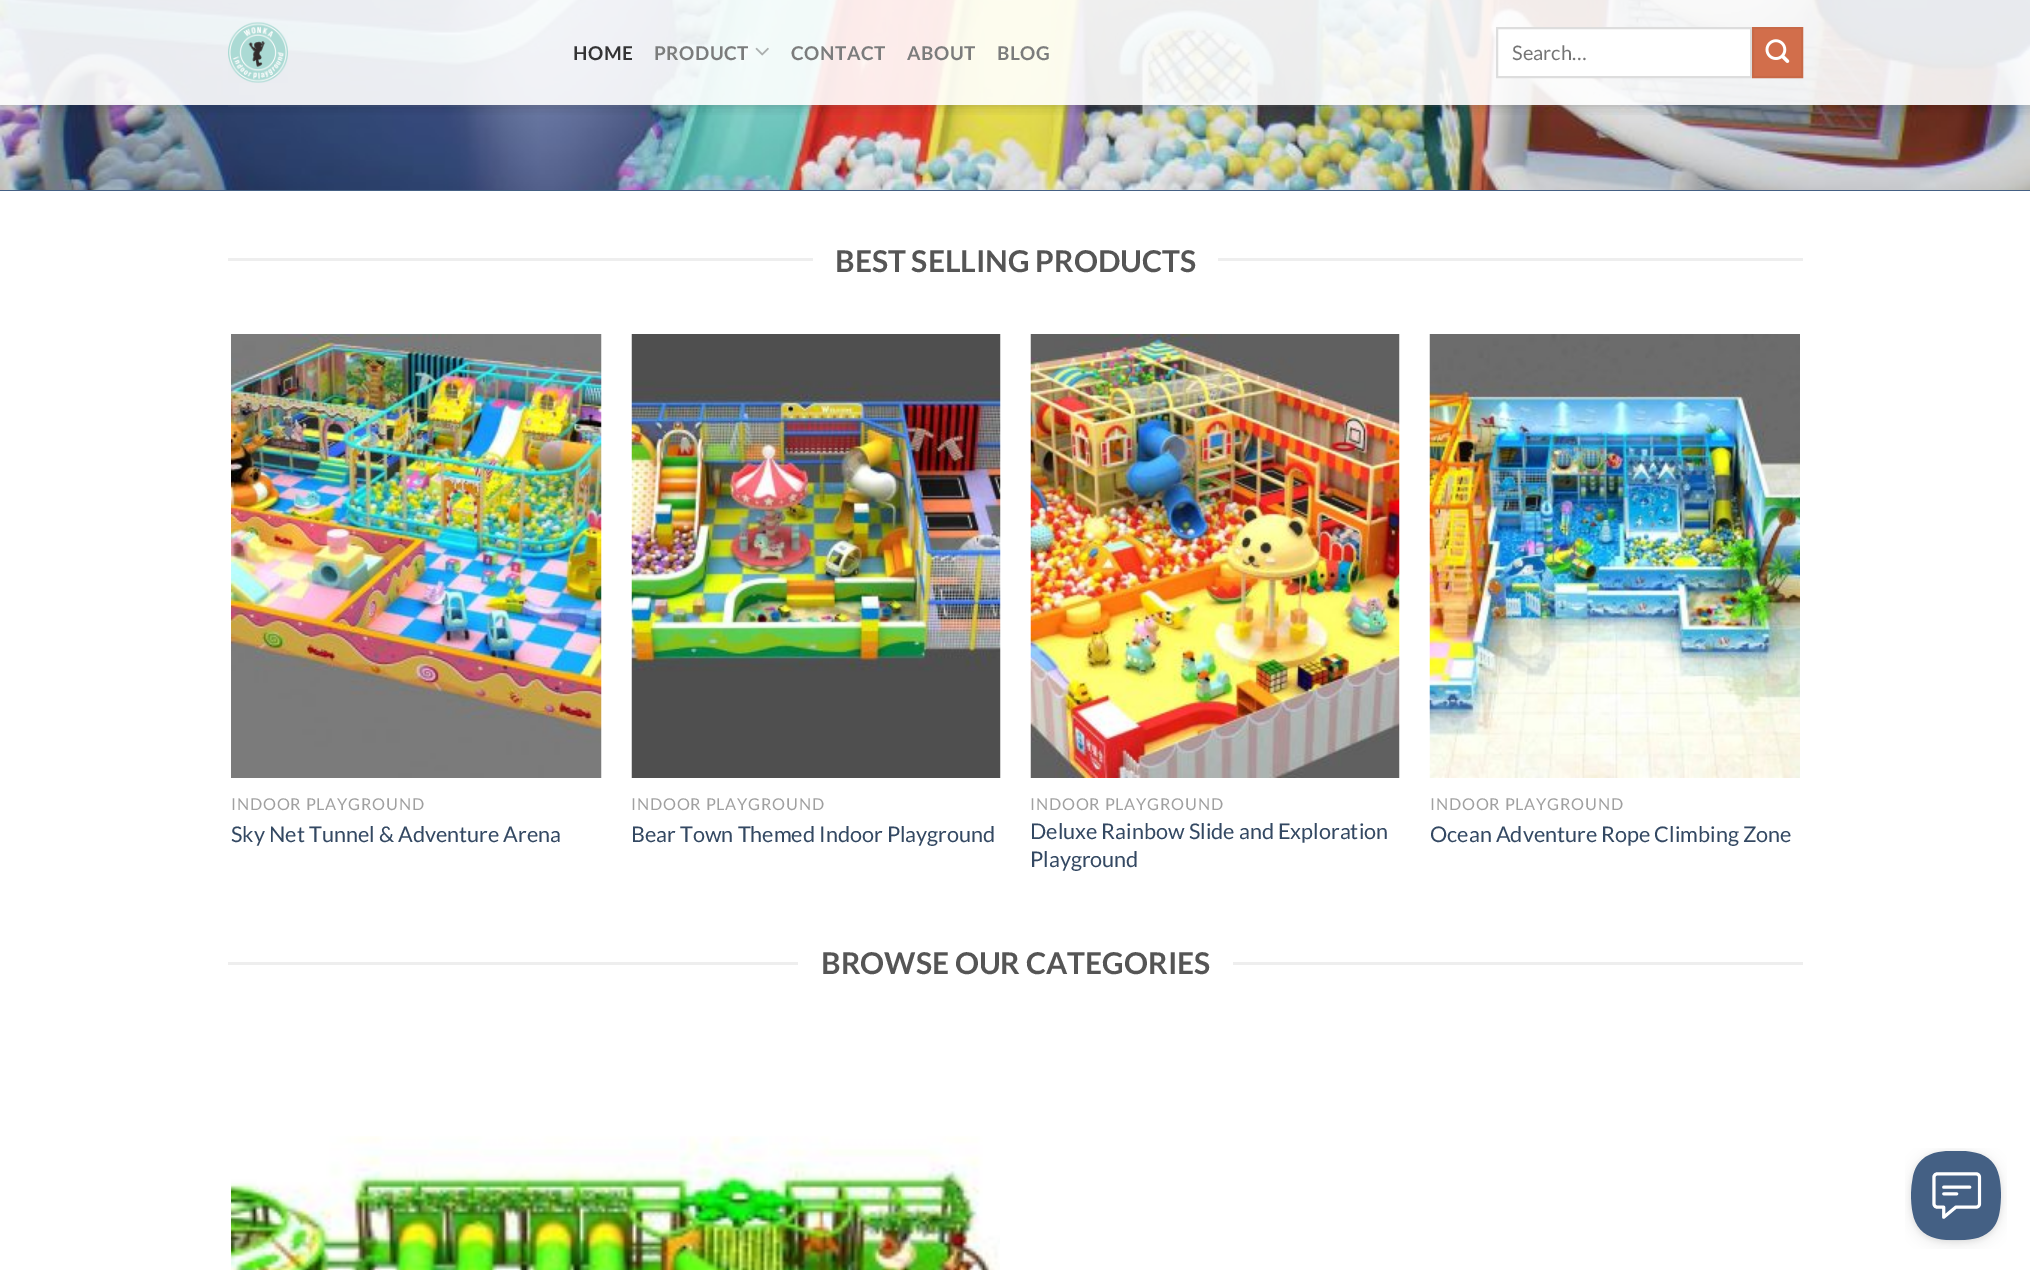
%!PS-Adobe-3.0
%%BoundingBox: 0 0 2030 1270
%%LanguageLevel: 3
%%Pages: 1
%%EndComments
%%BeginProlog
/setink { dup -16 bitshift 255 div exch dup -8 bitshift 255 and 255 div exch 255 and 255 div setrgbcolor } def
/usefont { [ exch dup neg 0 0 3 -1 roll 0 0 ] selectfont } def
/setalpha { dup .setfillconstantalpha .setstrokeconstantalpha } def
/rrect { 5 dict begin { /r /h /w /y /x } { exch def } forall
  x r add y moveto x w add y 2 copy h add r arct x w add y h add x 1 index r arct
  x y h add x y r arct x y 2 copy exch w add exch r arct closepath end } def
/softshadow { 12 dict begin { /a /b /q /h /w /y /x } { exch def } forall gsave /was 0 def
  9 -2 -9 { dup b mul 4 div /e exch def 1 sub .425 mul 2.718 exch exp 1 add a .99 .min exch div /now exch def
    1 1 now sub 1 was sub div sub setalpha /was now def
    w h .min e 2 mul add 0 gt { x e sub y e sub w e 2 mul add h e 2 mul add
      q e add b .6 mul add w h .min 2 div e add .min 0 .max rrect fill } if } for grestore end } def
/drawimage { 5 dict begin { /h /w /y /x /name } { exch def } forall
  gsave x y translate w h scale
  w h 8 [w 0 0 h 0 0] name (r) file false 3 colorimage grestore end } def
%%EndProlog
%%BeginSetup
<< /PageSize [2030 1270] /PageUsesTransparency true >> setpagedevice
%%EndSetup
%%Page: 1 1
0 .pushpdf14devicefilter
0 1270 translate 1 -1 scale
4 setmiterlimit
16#FFFFFF setink
0 0 2030 1270 rectfill
(img4.raw) 0 0 2030 190 drawimage
gsave
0 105 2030 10 rectclip
16#000000 setink
2 2 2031 105 0 7.5 0.15 softshadow
grestore
0.9 setalpha
0 0 2030 105 rectfill
1 setalpha
(img1.raw) 228 22 60 61 drawimage
/Lato-Bold 19 usefont
16#333334 setink
573 60 moveto 0.5 0 (HOME) ashow
16#7B7C7C setink
654 60 moveto 0.5 0 (PRODUCT) ashow
(img2.raw) 755 47 14 9 drawimage
791 60 moveto 0.5 0 (CONTACT) ashow
907 60 moveto 0.5 0 (ABOUT) ashow
997 60 moveto 0.5 0 (BLOG) ashow
16#FFFFFF setink
1497 28 moveto 1751 28 lineto 1751 77 lineto 1497 77 lineto closepath gsave fill grestore
16#DDDDDD setink
2 setlinewidth
stroke
/Lato-Regular 20 usefont
16#757575 setink
1512 60 moveto (Search…) show
16#D26E4B setink
1753 28 moveto 1802 28 lineto 1802 77 lineto 1753 77 lineto closepath gsave fill grestore
16#C86947 setink
stroke
(img3.raw) 1765 39 25 24 drawimage
0.1 setalpha
[
    [228 105 1502 2 16#777777]
] { aload pop setink rectfill } forall
1 setalpha
[
    [0 190 2030 1 16#446084]
    [228 258 585 3 16#EEEEEE]
] { aload pop setink rectfill } forall
/Lato-Bold 30 usefont
16#555555 setink
835 272 moveto (BEST SELLING PRODUCTS) show
16#EEEEEE setink
1218 258 585 3 rectfill
(img5.raw) 231 334 371 444 drawimage
/Lato-Regular 16.25 usefont
16#A0A0A0 setink
231 810 moveto 0.8 0 (INDOOR PLAYGROUND) ashow
/Lato-Regular 21.6 usefont
16#334862 setink
231 842 moveto (Sky Net Tunnel & Adventure Arena) show
(img6.raw) 631 334 370 444 drawimage
/Lato-Regular 16.25 usefont
16#A0A0A0 setink
631 810 moveto 0.8 0 (INDOOR PLAYGROUND) ashow
/Lato-Regular 21.6 usefont
16#334862 setink
631 842 moveto (Bear Town Themed Indoor Playground) show
(img7.raw) 1030 334 370 444 drawimage
/Lato-Regular 16.25 usefont
16#A0A0A0 setink
1030 810 moveto 0.8 0 (INDOOR PLAYGROUND) ashow
/Lato-Regular 21.6 usefont
16#334862 setink
1030 839 moveto (Deluxe Rainbow Slide and Exploration) show
1030 867 moveto (Playground) show
(img8.raw) 1429 334 371 444 drawimage
/Lato-Regular 16.25 usefont
16#A0A0A0 setink
1430 810 moveto 0.8 0 (INDOOR PLAYGROUND) ashow
/Lato-Regular 21.6 usefont
16#334862 setink
1430 842 moveto (Ocean Adventure Rope Climbing Zone) show
16#EEEEEE setink
228 962 570 3 rectfill
/Lato-Bold 30 usefont
16#555555 setink
821 974 moveto (BROWSE OUR CATEGORIES) show
16#EEEEEE setink
1233 962 570 3 rectfill
(img9.raw) 231 1136 769 134 drawimage
(img10.raw) 1905 1148 102 101 drawimage
.poppdf14devicefilter showpage
%%EOF
